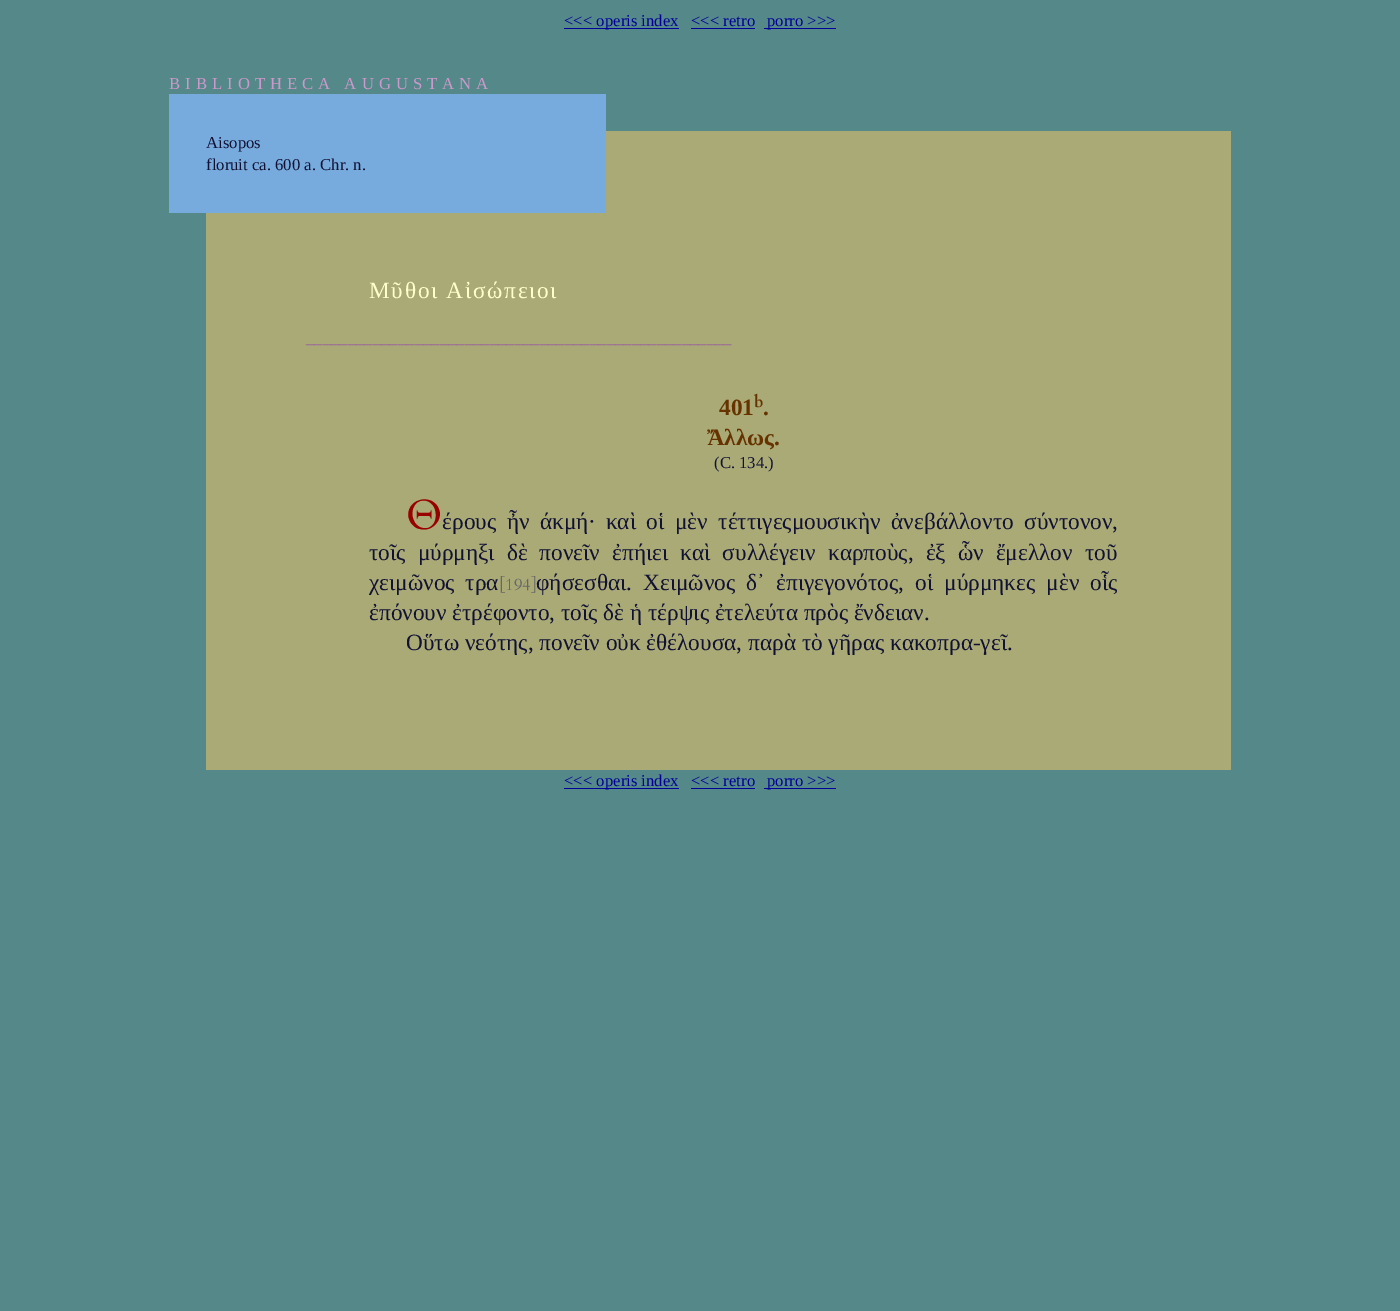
%!PS-Adobe-3.0
%%BoundingBox: 0 0 1400 1311
%%LanguageLevel: 3
%%Pages: 1
%%EndComments
%%BeginProlog
/setink { dup -16 bitshift 255 div exch dup -8 bitshift 255 and 255 div exch 255 and 255 div setrgbcolor } def
/usefont { [ exch dup neg 0 0 3 -1 roll 0 0 ] selectfont } def
%%EndProlog
%%BeginSetup
<< /PageSize [1400 1311] >> setpagedevice
%%EndSetup
%%Page: 1 1
0 1311 translate 1 -1 scale
4 setmiterlimit
16#558888 setink
0 0 1400 1311 rectfill
16#000099 setink
564 28 115 1 rectfill
/LiberationSerif-Regular 16.7 usefont
564 26 moveto (<<< operis index) show
691 26 moveto (<<< retro) show
691 28 64 1 rectfill
764 28 72 1 rectfill
767 26 moveto (porro >>>) show
16#CC99CC setink
169 89 moveto 5 0 (BIBLIOTHECA AUGUSTANA) ashow
16#77AADD setink
169 94 437 119 rectfill
16#AAAA77 setink
606 131 625 82 rectfill
16#111133 setink
206 148 moveto (Aisopos) show
206 170 moveto (floruit ca. 600 a. Chr. n.) show
16#AAAA77 setink
206 213 1025 557 rectfill
/LiberationSerif-Regular 23.3 usefont
16#FFFFCC setink
369 298 moveto 1.7 0 (Μῦθοι Αἰσώπειοι) ashow
/LiberationSerif-Regular 16.7 usefont
16#996699 setink
306 343 moveto (___________________________________________________) show
/LiberationSerif-Bold 23.3 usefont
16#663300 setink
719 415 moveto (401) show
/Cardo-Bold 16.7 usefont
754 407 moveto (b) show
/LiberationSerif-Bold 23.3 usefont
763 415 moveto (.) show
707 445 moveto (Ἄλλως.) show
/LiberationSerif-Regular 16.7 usefont
16#111133 setink
714 468 moveto (\(C. 134.\)) show
/Cardo-Regular 42 usefont
16#990000 setink
406 529 moveto (Θ) show
/LiberationSerif-Regular 23.3 usefont
16#111133 setink
442 529 moveto (έ) show
452 529 moveto 4.75 0 32 (ρους ἦν άκμή· καὶ οἱ μὲν τέττιγεςμουσικὴν ἀνεβάλλοντο σύντονον,) widthshow
369 560 moveto 6.25 0 32 (τοῖς μύρμηξι δὲ πονεῖν ἐπήιει καὶ συλλέγειν καρποὺς, ἐξ ὧν ἔμελλον τοῦ) widthshow
369 590 moveto 5 0 32 (χειμῶνος τρα) widthshow
/Cardo-Regular 16.7 usefont
16#666666 setink
499 590 moveto ([194]) show
/LiberationSerif-Regular 23.3 usefont
16#111133 setink
536 590 moveto 5.25 0 32 (φήσεσθαι. Χειμῶνος δ᾿ ἐπιγεγονότος, οἱ μύρμηκες μὲν οἷς) widthshow
369 620 moveto (ἐπόνουν ἐτρέφοντο, τοῖς δὲ ἡ τέρψις ἐτελεύτα πρὸς ἔνδειαν.) show
406 650 moveto (Οὕτω νεότης, πονεῖν οὐκ ἐθέλουσα, παρὰ τὸ γῆρας κακοπρα-γεῖ.) show
16#000099 setink
564 788 115 1 rectfill
/LiberationSerif-Regular 16.7 usefont
564 786 moveto (<<< operis index) show
691 786 moveto (<<< retro) show
691 788 64 1 rectfill
764 788 72 1 rectfill
767 786 moveto (porro >>>) show
showpage
%%EOF
